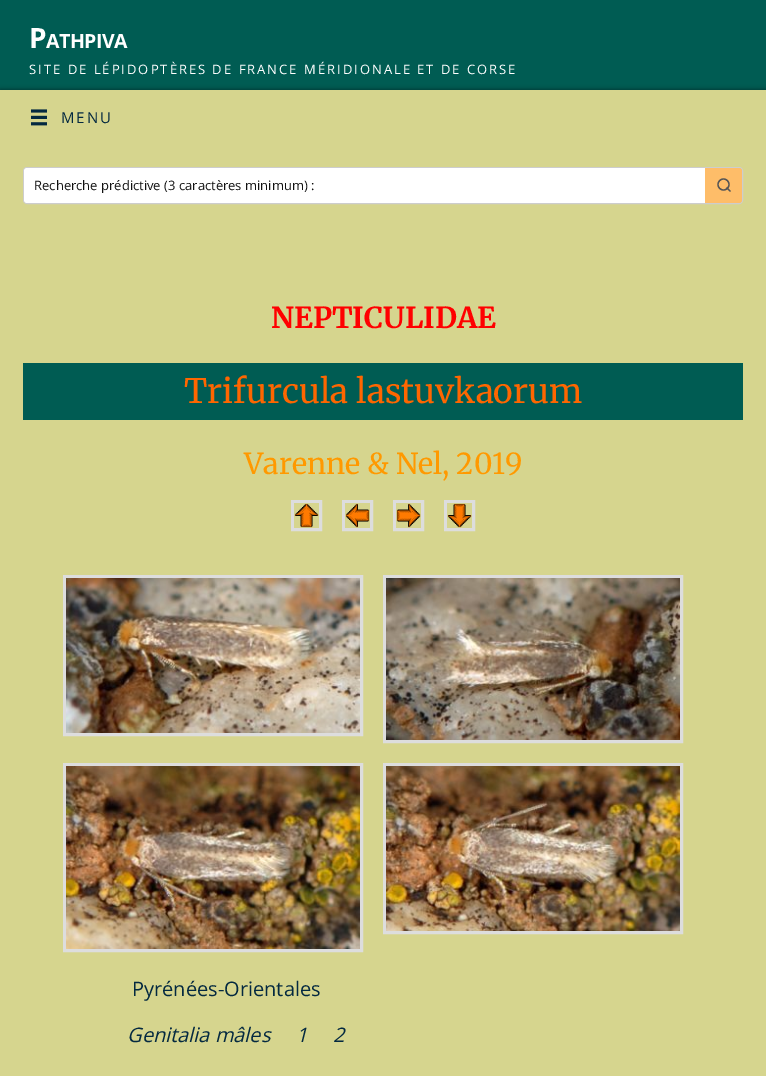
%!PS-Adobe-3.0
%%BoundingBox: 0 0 766 1076
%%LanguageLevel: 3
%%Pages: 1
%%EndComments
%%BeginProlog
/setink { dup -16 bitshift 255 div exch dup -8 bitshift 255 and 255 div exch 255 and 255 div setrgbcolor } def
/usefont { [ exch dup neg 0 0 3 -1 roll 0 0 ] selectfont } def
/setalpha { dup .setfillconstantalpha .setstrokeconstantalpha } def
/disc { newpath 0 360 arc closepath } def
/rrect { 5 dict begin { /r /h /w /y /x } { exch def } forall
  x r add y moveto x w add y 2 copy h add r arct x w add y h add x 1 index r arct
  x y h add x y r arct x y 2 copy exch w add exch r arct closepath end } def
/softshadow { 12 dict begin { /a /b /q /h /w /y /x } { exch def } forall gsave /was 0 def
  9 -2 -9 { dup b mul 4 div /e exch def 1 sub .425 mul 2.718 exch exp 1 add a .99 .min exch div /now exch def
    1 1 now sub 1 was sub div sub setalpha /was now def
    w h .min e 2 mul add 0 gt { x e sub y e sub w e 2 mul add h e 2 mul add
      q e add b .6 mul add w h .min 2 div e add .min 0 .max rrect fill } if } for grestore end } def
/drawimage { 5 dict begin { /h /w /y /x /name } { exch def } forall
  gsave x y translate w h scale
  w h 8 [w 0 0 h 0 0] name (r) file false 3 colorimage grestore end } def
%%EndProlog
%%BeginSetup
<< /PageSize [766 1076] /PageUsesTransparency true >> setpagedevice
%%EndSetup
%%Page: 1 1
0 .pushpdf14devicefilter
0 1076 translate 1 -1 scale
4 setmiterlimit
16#005C53 setink
0 0 766 1076 rectfill
/OpenSans-Bold 28 usefont
16#FFFFFF setink
29 48 moveto -0.5 0 (P) ashow
/OpenSans-Bold 19.5 usefont
46 48 moveto -0.5 0 (ATHPIVA) ashow
/OpenSans-Regular 13 usefont
29 74 moveto 2 0 (SITE DE LÉPIDOPTÈRES DE FRANCE MÉRIDIONALE ET DE CORSE) ashow
16#000000 setink
0 90 766 54 0 2.5 0.5 softshadow
16#D6D58E setink
0 90 766 986 rectfill
(img1.raw) 31 109 16 17 drawimage
/OpenSans-Regular 15 usefont
16#042940 setink
61 123 moveto 2 0 (MENU) ashow
16#CDCDCD setink
23.5 167.5 719 36 3.5 rrect stroke
16#FFFFFF setink
27 168 moveto 705 168 lineto 705 203 lineto 27 203 lineto 25.5 203 24 201.5 24 200 curveto 24 171 lineto 24 169.5 25.5 168 27 168 curveto closepath fill
/OpenSans-Regular 13 usefont
16#111111 setink
34 190 moveto (Recherche prédictive \(3 caractères minimum\) :) show
16#FEBD69 setink
705 168 moveto 739 168 lineto 740.5 168 742 169.5 742 171 curveto 742 200 lineto 742 201.5 740.5 203 739 203 curveto 705 203 lineto closepath fill
16#555555 setink
1.3 setlinewidth
723.5 184.5 5.5 disc stroke
1 setlinecap
1 setlinejoin
730 191 moveto 727 188 lineto stroke
/Merriweather-Bold 28.9 usefont
16#FF0000 setink
271 328 moveto (NEPTICULIDAE) show
16#005C53 setink
23 363 720 57 rectfill
/Merriweather-Regular 33.5 usefont
16#FF6600 setink
184 403 moveto (Trifurcula lastuvkaorum) show
/Merriweather-Regular 28.9 usefont
16#FF9900 setink
244 474 moveto (Varenne & Nel, 2019) show
16#DDDDDD setink
3 setlinewidth
0 setlinecap
0 setlinejoin
292.5 501.5 28 28 rectstroke
343.5 501.5 28 28 rectstroke
394.5 501.5 28 28 rectstroke
445.5 501.5 28 28 rectstroke
(img2.raw) 294 503 25 25 drawimage
(img3.raw) 345 503 25 25 drawimage
(img4.raw) 396 503 25 25 drawimage
(img5.raw) 447 503 25 25 drawimage
64.5 576.5 297 158 rectstroke
(img6.raw) 66 578 294 155 drawimage
384.5 576.5 297 165 rectstroke
(img7.raw) 386 578 294 162 drawimage
64.5 764.5 297 186 rectstroke
(img8.raw) 66 766 294 183 drawimage
384.5 764.5 297 168 rectstroke
(img9.raw) 386 766 294 165 drawimage
/OpenSans-Regular 20 usefont
16#042940 setink
132 996 moveto (Pyrénées-Orientales) show
/OpenSans-Italic 20 usefont
[
    [(Genitalia mâles) 127 1042]
    [(1) 296 1042]
    [(2) 333 1042]
] { aload pop moveto show } forall
.poppdf14devicefilter showpage
%%EOF
